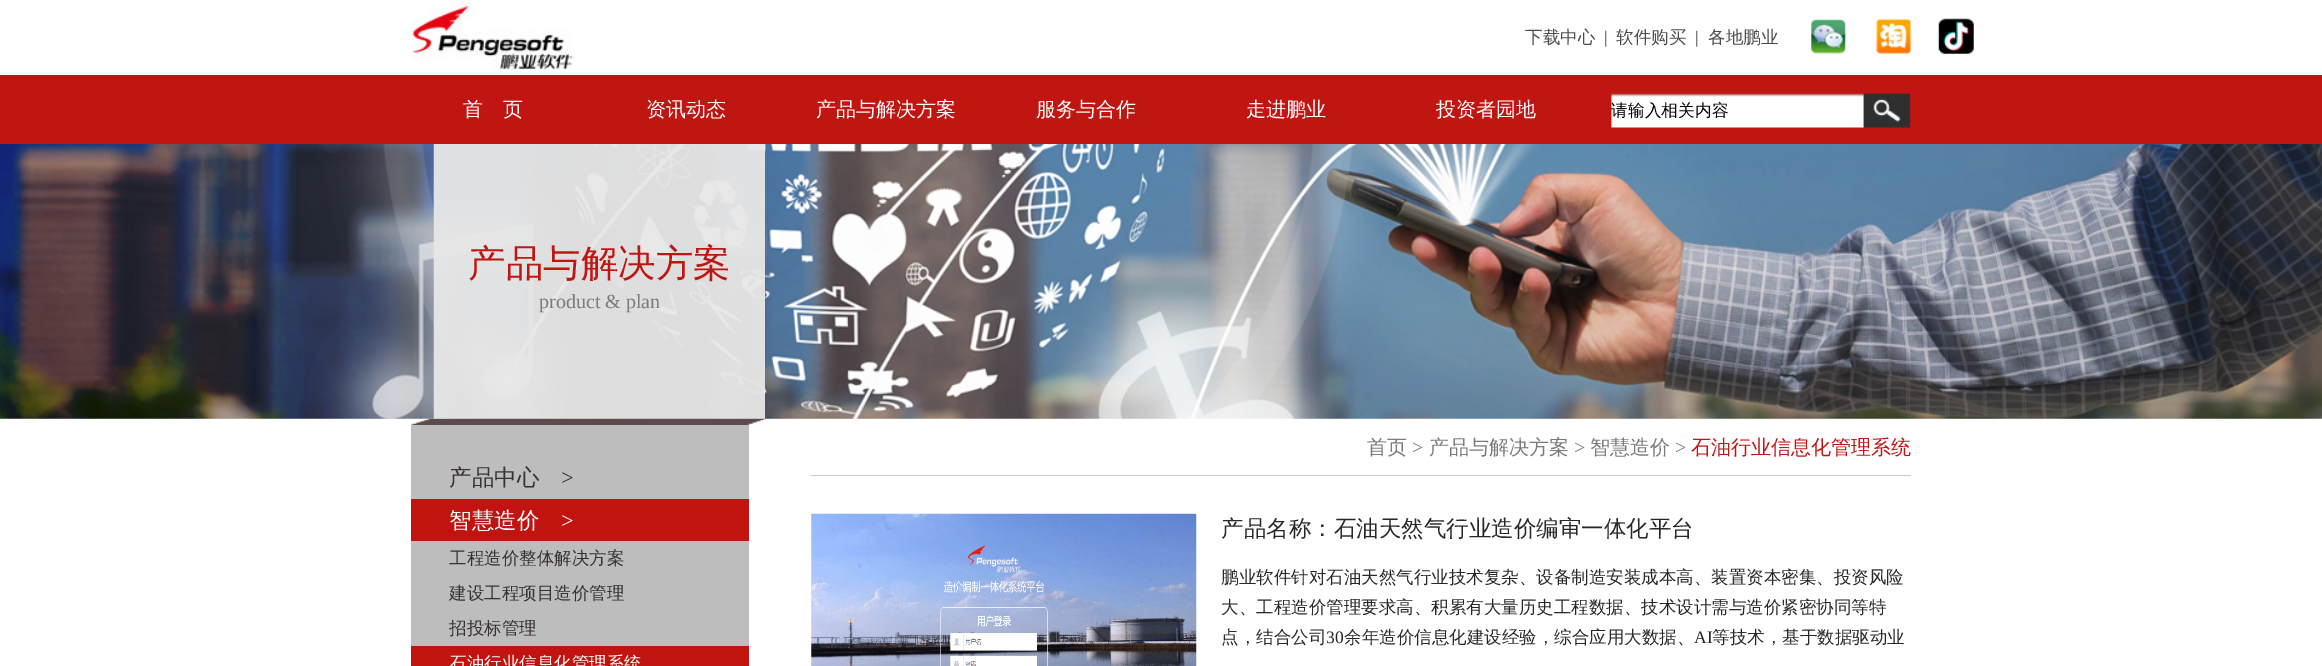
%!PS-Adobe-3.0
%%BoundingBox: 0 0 2322 666
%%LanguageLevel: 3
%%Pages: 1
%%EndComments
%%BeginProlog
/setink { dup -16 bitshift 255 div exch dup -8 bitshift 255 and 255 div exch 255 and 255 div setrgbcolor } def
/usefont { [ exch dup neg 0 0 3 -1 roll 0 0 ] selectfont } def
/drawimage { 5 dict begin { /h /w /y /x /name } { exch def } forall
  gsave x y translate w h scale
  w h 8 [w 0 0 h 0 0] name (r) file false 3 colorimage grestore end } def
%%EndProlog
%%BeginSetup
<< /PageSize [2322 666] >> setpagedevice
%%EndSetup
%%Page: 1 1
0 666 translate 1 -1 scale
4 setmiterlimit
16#FFFFFF setink
0 0 2322 666 rectfill
(img1.raw) 411 0 162 70 drawimage
/WenQuanYiZenHei-Medium 17.5 usefont
16#4C4C4C setink
1525 43 moveto (下载中心) show
/LiberationSerif-Regular 17.5 usefont
1604 43 moveto (|) show
/WenQuanYiZenHei-Medium 17.5 usefont
1616 43 moveto (软件购买) show
/LiberationSerif-Regular 17.5 usefont
1695 43 moveto (|) show
/WenQuanYiZenHei-Medium 17.5 usefont
1708 43 moveto (各地鹏业) show
(img2.raw) 1811 18 36 36 drawimage
(img3.raw) 1876 18 36 36 drawimage
(img4.raw) 1938 18 36 36 drawimage
16#C11512 setink
0 75 2322 69 rectfill
/WenQuanYiZenHei-Medium 20 usefont
16#FFFFFF setink
[
    [(首) 463 116]
    [(页) 503 116]
    [(资讯动态) 646 116]
    [(产品与解决方案) 816 116]
    [(服务与合作) 1036 116]
    [(走进鹏业) 1246 116]
    [(投资者园地) 1436 116]
] { aload pop moveto show } forall
(img5.raw) 1611 93 253 35 drawimage
/WenQuanYiZenHei-Medium 16.75 usefont
16#000000 setink
1611 116 moveto (请输入相关内容) show
(img6.raw) 1863 93 48 35 drawimage
(img9.raw) 411 418 355 7 drawimage
(img7.raw) 0 144 2322 275 drawimage
(img8.raw) 433 144 332 275 drawimage
/WenQuanYiZenHei-Medium 37.5 usefont
16#C11512 setink
468 276 moveto (产品与解决方案) show
/LiberationSerif-Regular 20 usefont
16#7B7B7B setink
539 308 moveto (product & plan) show
16#BDBDBD setink
411 425 338 221 rectfill
/WenQuanYiZenHei-Medium 22.5 usefont
16#393030 setink
449 485 moveto (产品中心) show
/LiberationSerif-Regular 22.5 usefont
561 485 moveto (>) show
16#C11411 setink
411 499 338 42 rectfill
/WenQuanYiZenHei-Medium 22.5 usefont
16#FFFFFF setink
449 528 moveto (智慧造价) show
/LiberationSerif-Regular 22.5 usefont
561 528 moveto (>) show
/WenQuanYiZenHei-Medium 17.5 usefont
16#393030 setink
[
    [(工程造价整体解决方案) 449 564]
    [(建设工程项目造价管理) 449 599]
    [(招投标管理) 449 634]
] { aload pop moveto show } forall
16#C11411 setink
411 646 338 20 rectfill
16#FFFFFF setink
449 669 moveto (石油行业信息化管理系统) show
16#CBCBCB setink
811 475 1100 1 rectfill
/WenQuanYiZenHei-Medium 20 usefont
16#7B7B7B setink
1367 454 moveto (首页) show
/LiberationSerif-Regular 20 usefont
1412 454 moveto (>) show
/WenQuanYiZenHei-Medium 20 usefont
1429 454 moveto (产品与解决方案) show
/LiberationSerif-Regular 20 usefont
1574 454 moveto (>) show
/WenQuanYiZenHei-Medium 20 usefont
1590 454 moveto (智慧造价) show
/LiberationSerif-Regular 20 usefont
1675 454 moveto (>) show
/WenQuanYiZenHei-Medium 20 usefont
16#C11512 setink
1691 454 moveto (石油行业信息化管理系统) show
(img10.raw) 811 513 386 153 drawimage
/WenQuanYiZenHei-Medium 22.5 usefont
16#282828 setink
1221 536 moveto (产品名称：石油天然气行业造价编审一体化平台) show
/WenQuanYiZenHei-Medium 17.5 usefont
[
    [(鹏业软件针对石油天然气行业技术复杂、设备制造安装成本高、装置资本密集、投资风险) 1221 583]
    [(大、工程造价管理要求高、积累有大量历史工程数据、技术设计需与造价紧密协同等特) 1221 613]
    [(点，结合公司) 1221 643]
] { aload pop moveto show } forall
/LiberationSerif-Regular 17.5 usefont
1326 643 moveto (30) show
/WenQuanYiZenHei-Medium 17.5 usefont
1344 643 moveto (余年造价信息化建设经验，综合应用大数据、) show
/LiberationSerif-Regular 17.5 usefont
1694 643 moveto (AI) show
/WenQuanYiZenHei-Medium 17.5 usefont
1712 643 moveto (等技术，基于数据驱动业) show
showpage
%%EOF
